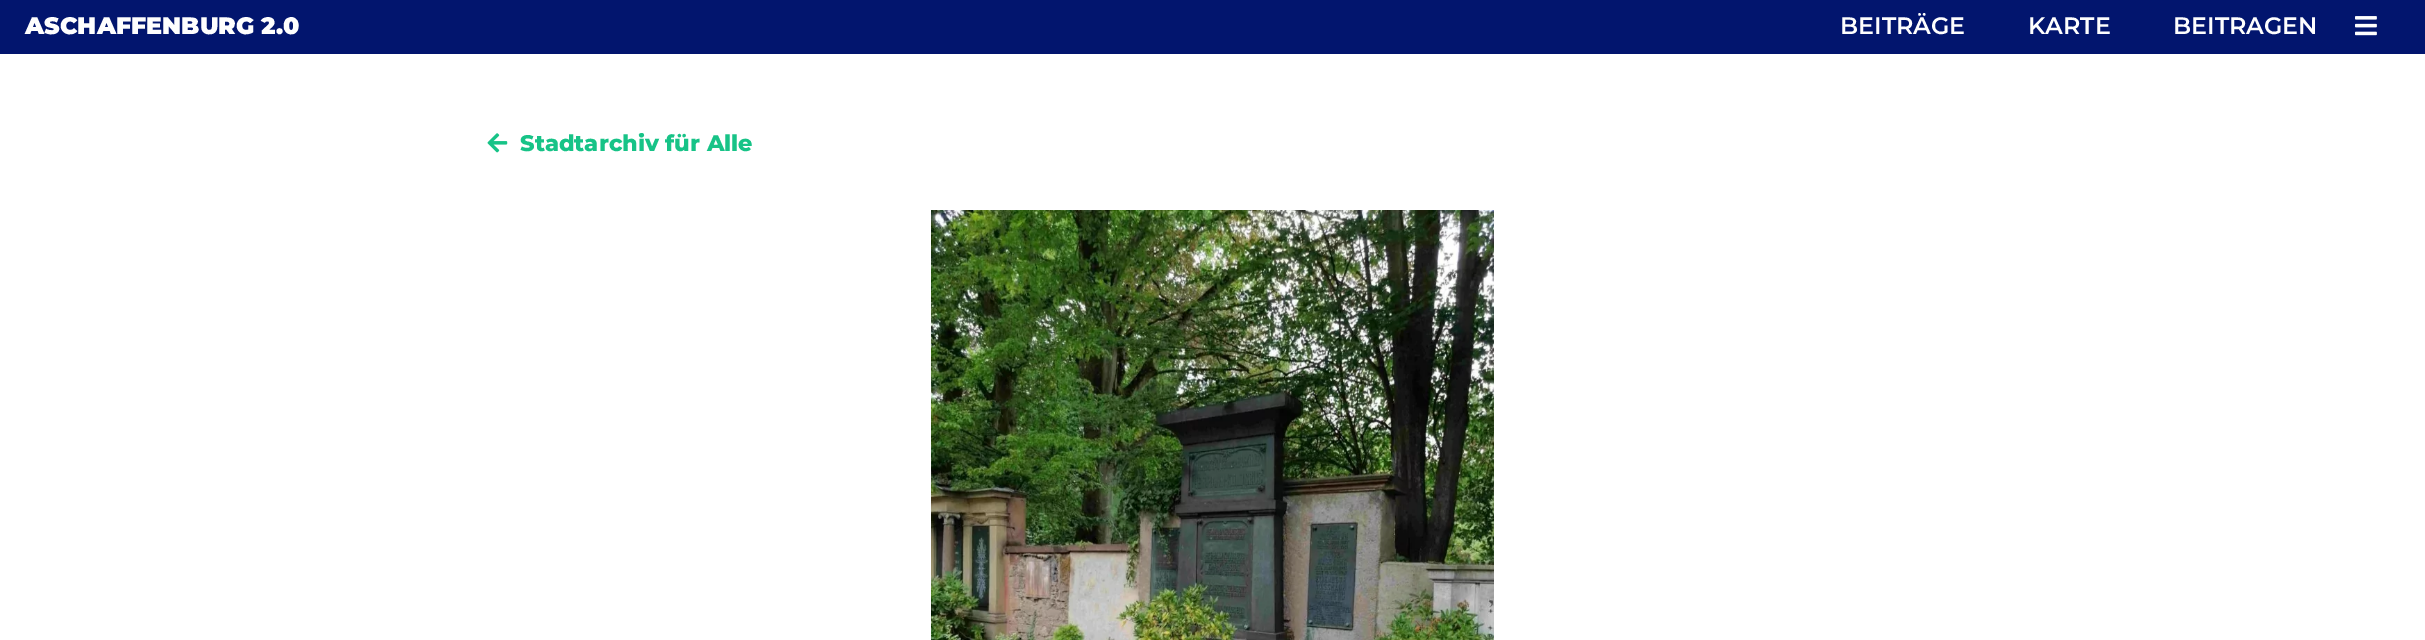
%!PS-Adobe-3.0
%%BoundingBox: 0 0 2425 640
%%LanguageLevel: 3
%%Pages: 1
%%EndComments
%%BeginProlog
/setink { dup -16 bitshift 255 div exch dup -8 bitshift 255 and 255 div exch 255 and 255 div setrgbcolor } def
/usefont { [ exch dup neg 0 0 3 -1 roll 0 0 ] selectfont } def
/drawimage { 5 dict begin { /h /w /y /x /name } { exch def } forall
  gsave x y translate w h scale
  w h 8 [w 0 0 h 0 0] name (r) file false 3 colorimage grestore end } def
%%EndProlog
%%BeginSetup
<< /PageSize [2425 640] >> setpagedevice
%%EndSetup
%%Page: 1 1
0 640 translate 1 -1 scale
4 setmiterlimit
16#FFFFFF setink
0 0 2425 640 rectfill
16#02156E setink
0 0 2425 54 rectfill
/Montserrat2-Thin 23.75 usefont
16#FEFEFE setink
25 34 moveto (ASCHAFFENBURG 2.0) show
/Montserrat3-Thin 23.75 usefont
[
    [(BEITRÄGE) 1840 34]
    [(KARTE) 2028 34]
    [(BEITRAGEN) 2173 34]
] { aload pop moveto show } forall
(img1.raw) 2355 16 22 20 drawimage
(img2.raw) 487 133 21 20 drawimage
/Montserrat-Thin 22.5 usefont
16#17C387 setink
520 151 moveto (Stadtarchiv für Alle) show
(img3.raw) 931 210 563 430 drawimage
showpage
%%EOF
